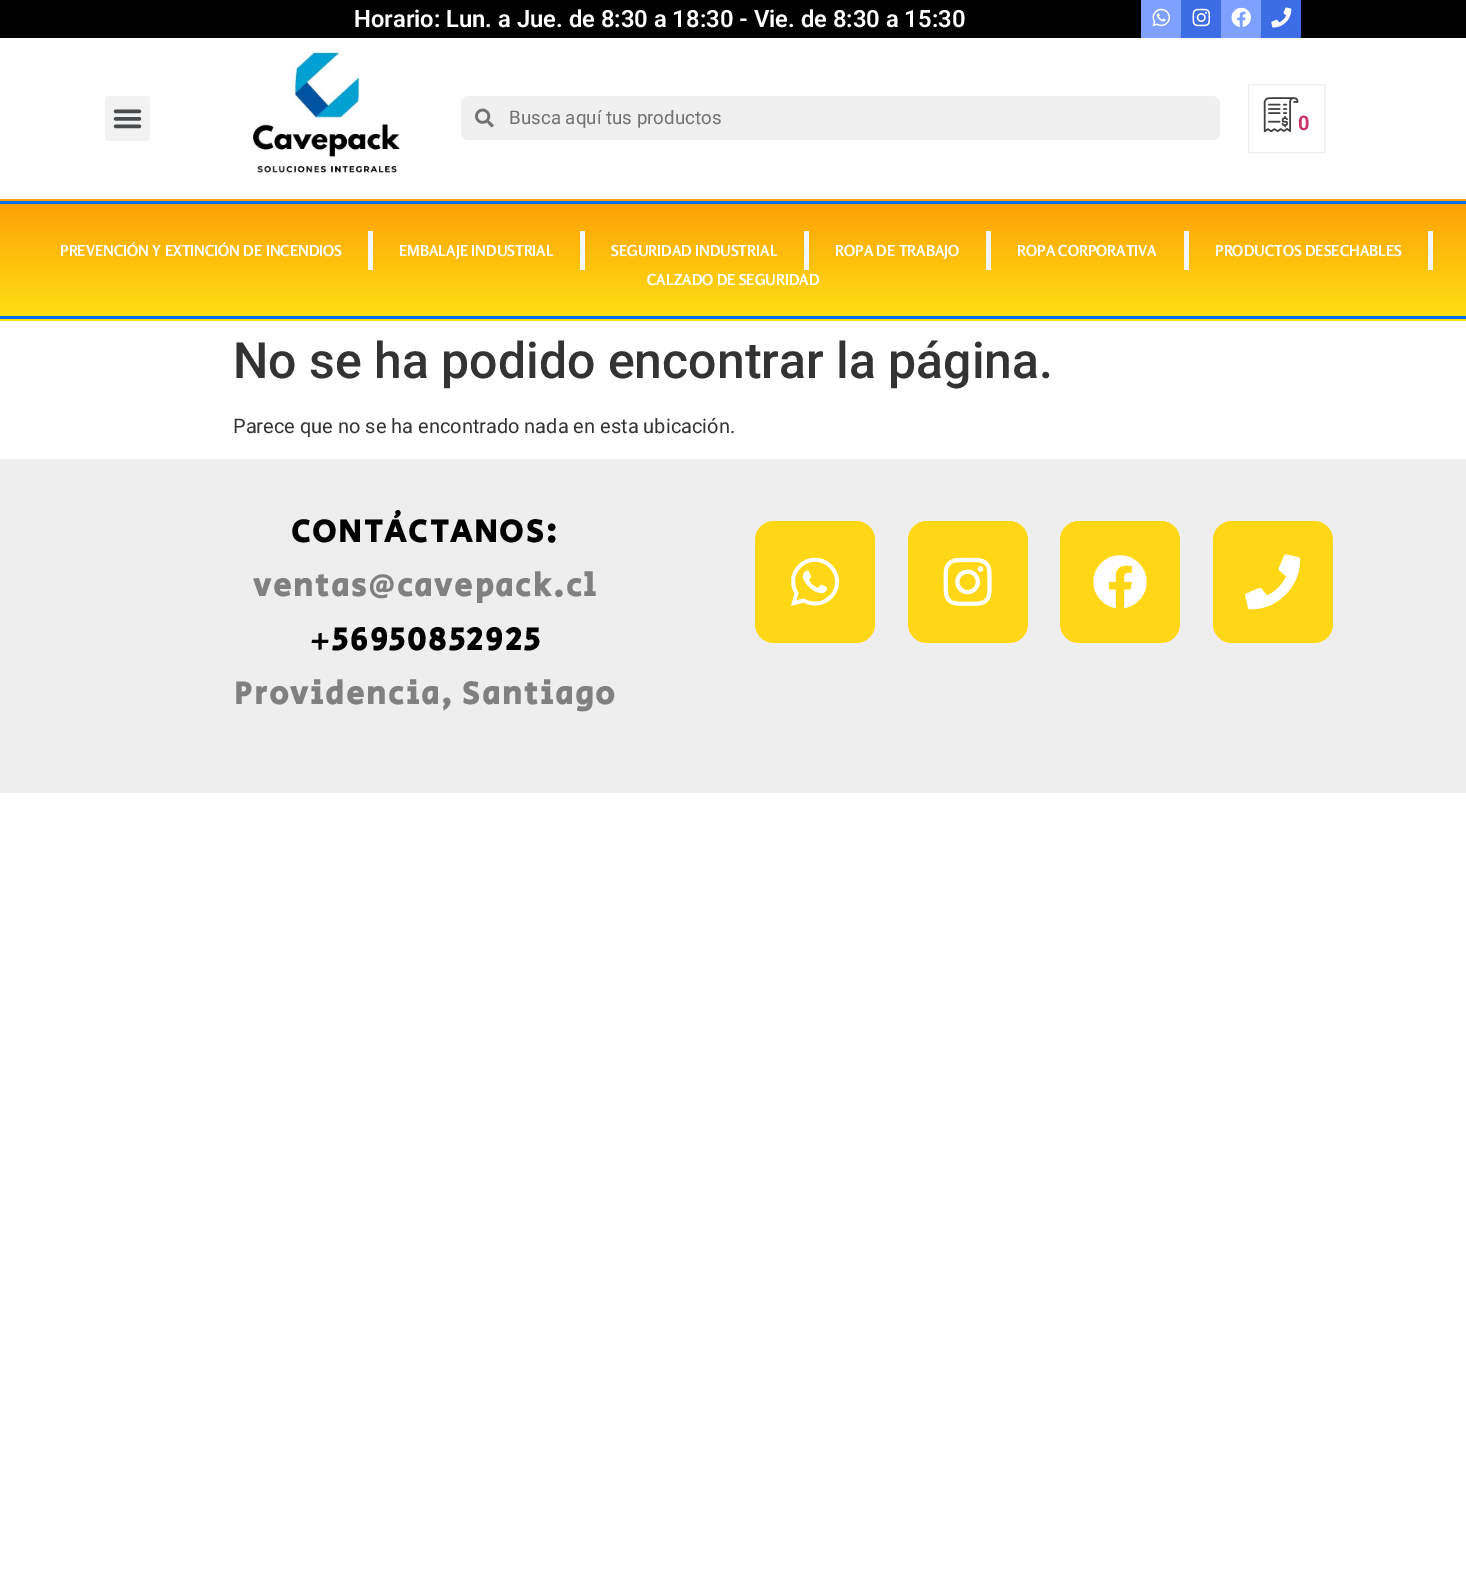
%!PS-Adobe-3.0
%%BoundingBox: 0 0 1466 1582
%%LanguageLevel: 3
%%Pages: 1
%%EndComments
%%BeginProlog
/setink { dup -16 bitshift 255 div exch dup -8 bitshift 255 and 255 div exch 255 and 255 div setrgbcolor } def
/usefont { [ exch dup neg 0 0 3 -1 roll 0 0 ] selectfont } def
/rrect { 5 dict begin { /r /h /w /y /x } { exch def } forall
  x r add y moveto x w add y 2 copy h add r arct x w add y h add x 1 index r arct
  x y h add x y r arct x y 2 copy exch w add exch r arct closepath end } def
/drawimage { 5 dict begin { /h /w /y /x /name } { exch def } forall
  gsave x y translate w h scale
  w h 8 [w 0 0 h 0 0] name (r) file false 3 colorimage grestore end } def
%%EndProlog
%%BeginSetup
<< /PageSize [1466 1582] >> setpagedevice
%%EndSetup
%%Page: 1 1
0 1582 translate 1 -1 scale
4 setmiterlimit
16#FFFFFF setink
0 0 1466 1582 rectfill
16#000000 setink
0 0 1466 38 rectfill
/Roboto-SemiBold 23.75 usefont
16#FFFFFF setink
354 27 moveto (Horario: Lun. a Jue. de 8:30 a 18:30 - Vie. de 8:30 a 15:30) show
16#7EA1FF setink
1141 0 40 38 rectfill
(img1.raw) 1152 8 18 19 drawimage
16#3D6CE7 setink
1181 0 40 38 rectfill
(img2.raw) 1192 8 19 19 drawimage
16#7EA1FF setink
1221 0 40 38 rectfill
(img3.raw) 1231 7 20 20 drawimage
16#3D6CE7 setink
1261 0 40 38 rectfill
(img4.raw) 1271 7 21 21 drawimage
16#F2F2F2 setink
105 96 45 45 4 rrect fill
(img5.raw) 113 109 29 20 drawimage
(img6.raw) 253 50 147 123 drawimage
16#F0F0F0 setink
461 96 759 44 8 rrect fill
(img7.raw) 475 108 19 20 drawimage
/Roboto-Regular 18.75 usefont
16#737171 setink
509 124 moveto (Busca aquí tus productos) show
16#EFEFEF setink
1248.5 84.5 76 68 rectstroke
(img8.raw) 1263 97 36 36 drawimage
/Roboto-Bold 20 usefont
16#CC3366 setink
1298 130 moveto (0) show
gsave 0 199 moveto 1466 199 lineto 1466 321 lineto 0 321 lineto closepath clip newpath
<< /ShadingType 2 /ColorSpace /DeviceRGB /Coords [733 199 733 321] /Extend [true true] /Function << /FunctionType 2 /Domain [0 1] /C0 [0.992 0.62 0.02] /C1 [1 0.886 0.078] /N 1 >> >> shfill grestore
16#0072E7 setink
0 201 1466 3 rectfill
/Rosario-Bold 15 usefont
16#FFFFFF setink
60 256 moveto (PREVENCIÓN Y EXTINCIÓN DE INCENDIOS) show
16#F3F6FA setink
368 231 5 39 rectfill
16#FFFFFF setink
399 256 moveto (EMBALAJE INDUSTRIAL) show
16#F3F6FA setink
580 231 5 39 rectfill
16#FFFFFF setink
611 256 moveto (SEGURIDAD INDUSTRIAL) show
16#F3F6FA setink
804 231 5 39 rectfill
16#FFFFFF setink
835 256 moveto (ROPA DE TRABAJO) show
16#F3F6FA setink
986 231 5 39 rectfill
16#FFFFFF setink
1017 256 moveto (ROPA CORPORATIVA) show
16#F3F6FA setink
1184 231 5 39 rectfill
16#FFFFFF setink
1215 256 moveto (PRODUCTOS DESECHABLES) show
16#F3F6FA setink
1428 231 5 39 rectfill
16#FFFFFF setink
647 285 moveto (CALZADO DE SEGURIDAD) show
16#0072E7 setink
0 316 1466 3 rectfill
/Roboto-Medium 50 usefont
16#333333 setink
233 378 moveto (No se ha podido encontrar la página.) show
/Roboto-Regular 20 usefont
233 433 moveto (Parece que no se ha encontrado nada en esta ubicación.) show
16#EEEEEE setink
0 459 1466 334 rectfill
/SecularOne-Bold 32.5 usefont
16#000000 setink
291 542 moveto 2 0 (CONTÁCTANOS:) ashow
16#808080 setink
253 596 moveto 2 0 (ventas@cavepack.cl) ashow
16#000000 setink
309 650 moveto 2 0 (+56950852925) ashow
16#808080 setink
234 704 moveto 2 0 (Providencia, Santiago) ashow
16#FFD714 setink
755 521 120 122 19 rrect fill
(img9.raw) 791 557 49 49 drawimage
908 521 120 122 19 rrect fill
(img10.raw) 943 557 49 49 drawimage
1060 521 120 122 19 rrect fill
(img11.raw) 1093 555 54 54 drawimage
1213 521 120 122 19 rrect fill
(img12.raw) 1245 554 56 56 drawimage
showpage
%%EOF
